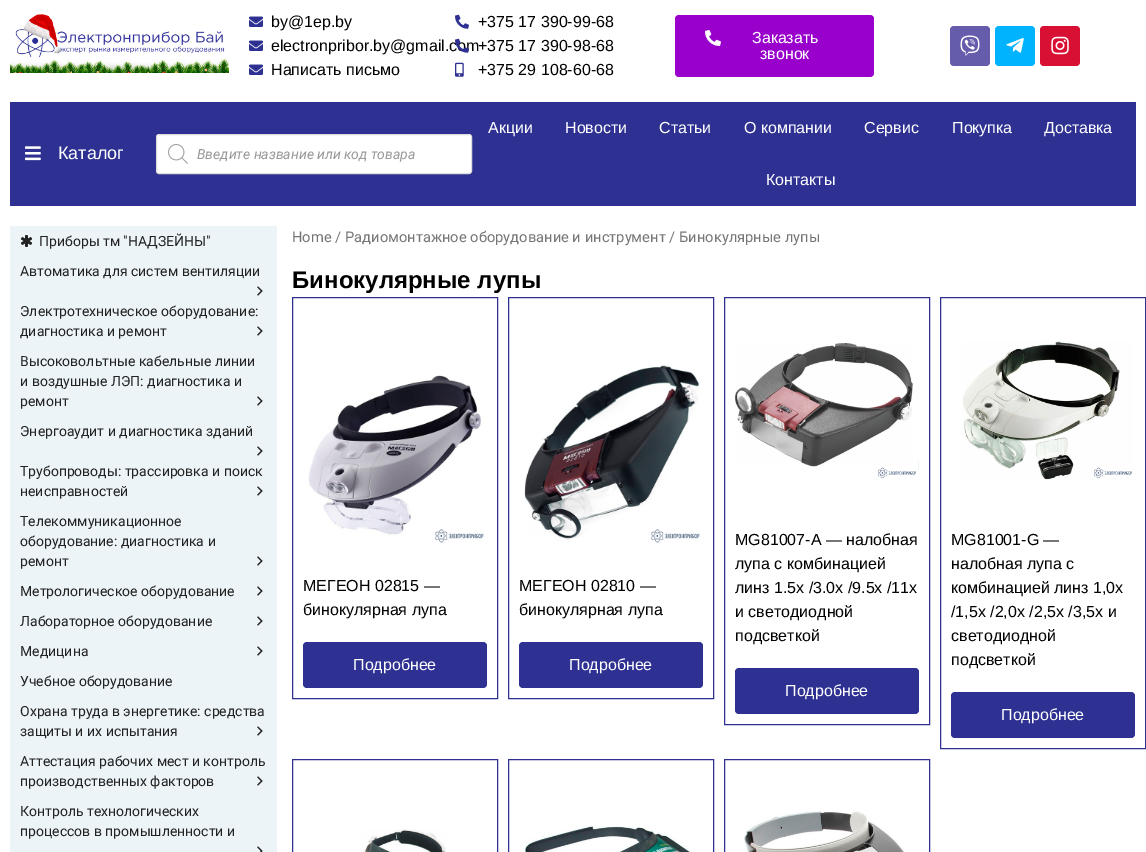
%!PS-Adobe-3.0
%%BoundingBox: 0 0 1146 852
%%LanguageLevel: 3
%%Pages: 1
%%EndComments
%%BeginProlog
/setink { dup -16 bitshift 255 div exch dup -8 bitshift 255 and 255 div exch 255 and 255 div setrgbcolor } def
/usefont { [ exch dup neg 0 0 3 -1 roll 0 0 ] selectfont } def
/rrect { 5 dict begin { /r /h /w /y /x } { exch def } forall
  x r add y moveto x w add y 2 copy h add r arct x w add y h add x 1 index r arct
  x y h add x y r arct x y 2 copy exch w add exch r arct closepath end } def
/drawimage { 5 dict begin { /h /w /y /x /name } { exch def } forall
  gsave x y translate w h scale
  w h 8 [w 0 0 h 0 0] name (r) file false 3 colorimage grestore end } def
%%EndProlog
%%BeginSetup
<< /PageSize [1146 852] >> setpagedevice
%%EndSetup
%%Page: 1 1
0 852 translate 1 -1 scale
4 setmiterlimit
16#FFFFFF setink
0 0 1146 852 rectfill
(img1.raw) 10 14 219 59 drawimage
(img2.raw) 249 16 14 11 drawimage
/LiberationSans-Regular 16 usefont
16#000000 setink
271 27 moveto (by@1ep.by) show
(img2.raw) 249 40 14 11 drawimage
271 51 moveto (electronpribor.by@gmail.com) show
(img2.raw) 249 64 14 11 drawimage
271 75 moveto (Написать письмо) show
(img3.raw) 455 14 14 15 drawimage
478 27 moveto (+375 17 390-99-68) show
(img4.raw) 455 38 14 15 drawimage
478 51 moveto (+375 17 390-98-68) show
(img5.raw) 455 62 9 15 drawimage
478 75 moveto (+375 29 108-60-68) show
16#9900CC setink
675 15 199 62 4 rrect fill
(img6.raw) 705 30 16 16 drawimage
16#FFFFFF setink
752 43 moveto (Заказать) show
760 59 moveto (звонок) show
16#665CAC setink
950 26 40 40 4 rrect fill
(img7.raw) 960 35 20 21 drawimage
16#00B3FF setink
995 26 40 40 4 rrect fill
(img8.raw) 1006 38 18 15 drawimage
16#D81033 setink
1040 26 40 40 4 rrect fill
(img9.raw) 1051 36 18 19 drawimage
16#2E3192 setink
10 102 1126 104 rectfill
(img10.raw) 25 146 16 15 drawimage
/LiberationSans-Regular 18 usefont
16#FFFFFF setink
58 159 moveto (Каталог) show
156.5 134.5 315 39 2.5 rrect gsave fill grestore
16#DDDDDD setink
stroke
(img11.raw) 168 144 20 20 drawimage
/Roboto-Italic 14 usefont
16#999999 setink
197 159 moveto (Введите название или код товара) show
/LiberationSans-Regular 16 usefont
16#FFFFFF setink
[
    [(Акции) 488 133]
    [(Новости) 565 133]
    [(Статьи) 659 133]
    [(О компании) 744 133]
    [(Сервис) 864 133]
    [(Покупка) 952 133]
    [(Доставка) 1044 133]
    [(Контакты) 766 185]
] { aload pop moveto show } forall
16#ECF4F7 setink
10 226 267 626 rectfill
(img12.raw) 20 235 12 12 drawimage
/Roboto-Regular 14 usefont
16#222222 setink
39 246 moveto (Приборы тм "НАДЗЕЙНЫ") show
20 276 moveto (Автоматика для систем вентиляции) show
(img13.raw) 257 286 6 10 drawimage
20 316 moveto (Электротехническое оборудование:) show
20 336 moveto (диагностика и ремонт) show
(img13.raw) 257 326 6 10 drawimage
[
    [(Высоковольтные кабельные линии) 20 366]
    [(и воздушные ЛЭП: диагностика и) 20 386]
    [(ремонт) 20 406]
] { aload pop moveto show } forall
(img13.raw) 257 396 6 10 drawimage
20 436 moveto (Энергоаудит и диагностика зданий) show
(img13.raw) 257 446 6 10 drawimage
20 476 moveto (Трубопроводы: трассировка и поиск) show
20 496 moveto (неисправностей) show
(img13.raw) 257 486 6 10 drawimage
[
    [(Телекоммуникационное) 20 526]
    [(оборудование: диагностика и) 20 546]
    [(ремонт) 20 566]
] { aload pop moveto show } forall
(img13.raw) 257 556 6 10 drawimage
20 596 moveto (Метрологическое оборудование) show
(img13.raw) 257 586 6 10 drawimage
20 626 moveto (Лабораторное оборудование) show
(img13.raw) 257 616 6 10 drawimage
20 656 moveto (Медицина) show
(img13.raw) 257 646 6 10 drawimage
[
    [(Учебное оборудование) 20 686]
    [(Охрана труда в энергетике: средства) 20 716]
    [(защиты и их испытания) 20 736]
] { aload pop moveto show } forall
(img13.raw) 257 726 6 10 drawimage
20 766 moveto (Аттестация рабочих мест и контроль) show
20 786 moveto (производственных факторов) show
(img13.raw) 257 776 6 10 drawimage
20 816 moveto (Контроль технологических) show
20 836 moveto (процессов в промышленности и) show
(img14.raw) 257 846 6 6 drawimage
/Roboto-Regular 14.7 usefont
16#767676 setink
292 242 moveto (Home / Радиомонтажное оборудование и инструмент / Бинокулярные лупы) show
/LiberationSans-Bold 24 usefont
16#000000 setink
292 288 moveto (Бинокулярные лупы) show
16#2E3192 setink
292.5 297.5 205 401 rectstroke
(img15.raw) 308 375 176 168 drawimage
/LiberationSans-Regular 16 usefont
16#000000 setink
303 591 moveto (МЕГЕОН 02815 —) show
303 615 moveto (бинокулярная лупа) show
16#2E3192 setink
303 642 184 46 4 rrect fill
16#FFFFFF setink
353 670 moveto (Подробнее) show
16#2E3192 setink
508.5 297.5 205 401 rectstroke
(img16.raw) 524 365 176 178 drawimage
16#000000 setink
519 591 moveto (МЕГЕОН 02810 —) show
519 615 moveto (бинокулярная лупа) show
16#2E3192 setink
519 642 184 46 4 rrect fill
16#FFFFFF setink
569 670 moveto (Подробнее) show
16#2E3192 setink
724.5 297.5 205 427 rectstroke
(img17.raw) 735 343 184 135 drawimage
16#000000 setink
[
    [(MG81007-A — налобная) 735 545]
    [(лупа с комбинацией) 735 569]
    [(линз 1.5x /3.0х /9.5х /11х) 735 593]
    [(и светодиодной) 735 617]
    [(подсветкой) 735 641]
] { aload pop moveto show } forall
16#2E3192 setink
735 668 184 46 4 rrect fill
16#FFFFFF setink
785 696 moveto (Подробнее) show
16#2E3192 setink
940.5 297.5 205 451 rectstroke
(img18.raw) 962 341 171 139 drawimage
16#000000 setink
[
    [(MG81001-G —) 951 545]
    [(налобная лупа с) 951 569]
    [(комбинацией линз 1,0х) 951 593]
    [(/1,5х /2,0х /2,5х /3,5х и) 951 617]
    [(светодиодной) 951 641]
    [(подсветкой) 951 665]
] { aload pop moveto show } forall
16#2E3192 setink
951 692 184 46 4 rrect fill
16#FFFFFF setink
1001 720 moveto (Подробнее) show
16#2E3192 setink
292.5 759.5 205 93 rectstroke
(img19.raw) 362 829 84 23 drawimage
508.5 759.5 205 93 rectstroke
(img20.raw) 524 826 168 26 drawimage
724.5 759.5 205 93 rectstroke
(img21.raw) 744 811 160 41 drawimage
showpage
%%EOF
